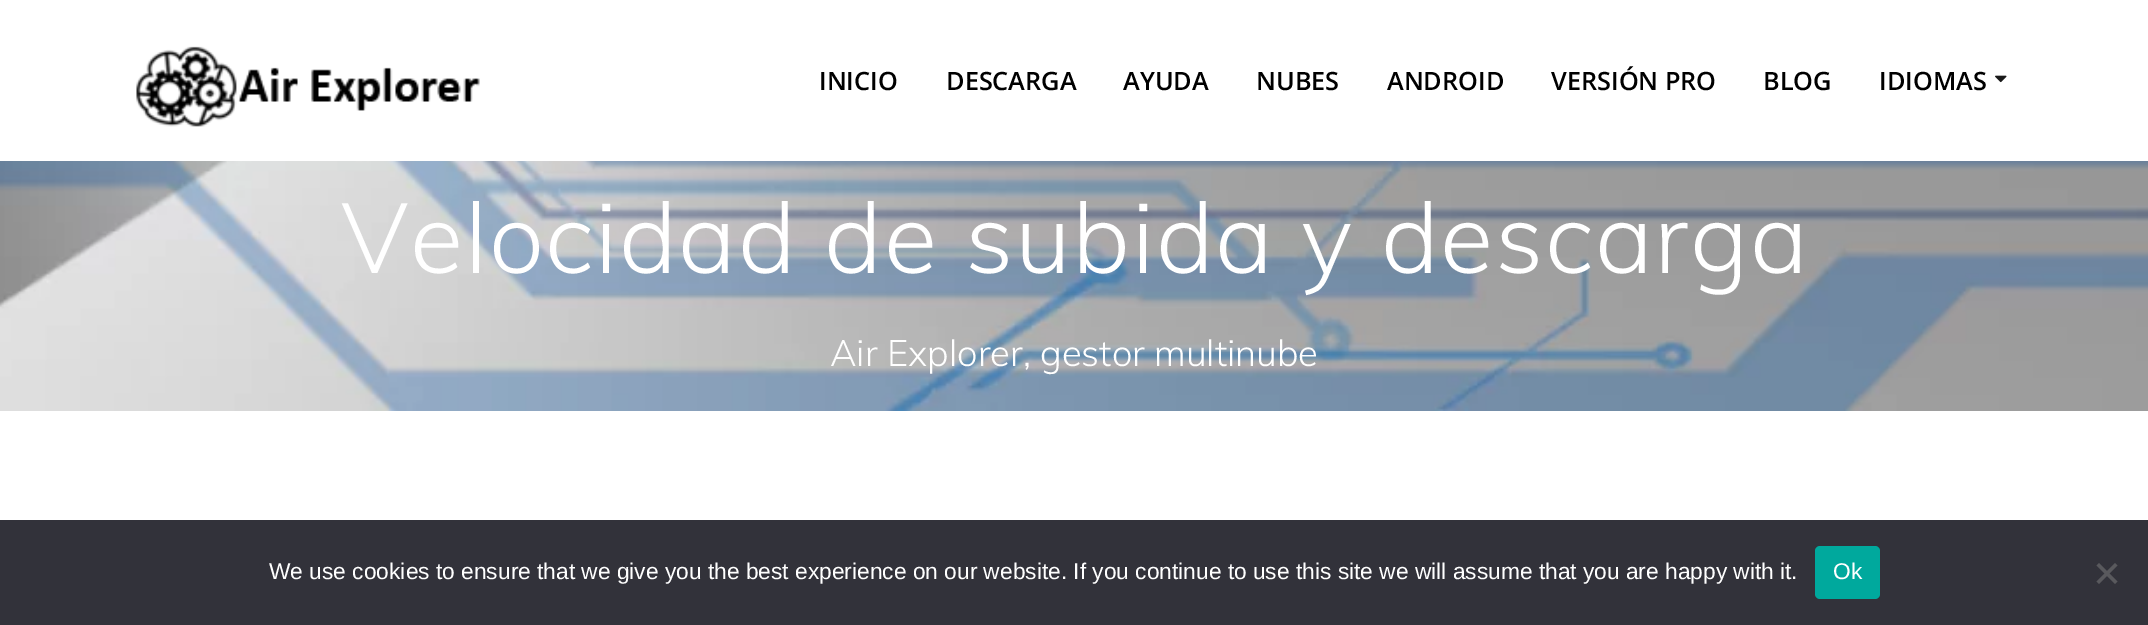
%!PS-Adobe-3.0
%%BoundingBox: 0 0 2148 625
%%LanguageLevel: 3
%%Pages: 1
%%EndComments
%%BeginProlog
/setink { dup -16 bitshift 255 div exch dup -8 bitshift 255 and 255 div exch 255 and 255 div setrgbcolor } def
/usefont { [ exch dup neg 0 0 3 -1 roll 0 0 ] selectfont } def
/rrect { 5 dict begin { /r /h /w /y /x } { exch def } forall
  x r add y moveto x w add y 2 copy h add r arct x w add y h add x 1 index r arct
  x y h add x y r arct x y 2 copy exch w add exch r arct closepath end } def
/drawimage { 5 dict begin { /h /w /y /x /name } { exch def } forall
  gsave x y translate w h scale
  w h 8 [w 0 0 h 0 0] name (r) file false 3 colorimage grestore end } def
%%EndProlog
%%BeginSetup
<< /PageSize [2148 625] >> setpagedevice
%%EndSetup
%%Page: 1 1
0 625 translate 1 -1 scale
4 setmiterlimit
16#FFFFFF setink
0 0 2148 625 rectfill
(img1.raw) 136 46 344 81 drawimage
/OpenSans-SemiBold 25.25 usefont
16#000000 setink
[
    [(INICIO) 819 90]
    [(DESCARGA) 946 90]
    [(AYUDA) 1123 90]
    [(NUBES) 1256 90]
    [(ANDROID) 1387 90]
    [(VERSIÓN PRO) 1551 90]
    [(BLOG) 1763 90]
    [(IDIOMAS) 1879 90]
] { aload pop moveto show } forall
(img2.raw) 1995 75 12 8 drawimage
(img3.raw) 0 161 2148 250 drawimage
/Muli-Light 98 usefont
16#FFFFFF setink
341 273 moveto 1.6 0 (Velocidad de subida y descarga) ashow
/Muli-Light 36.4 usefont
830 366 moveto (Air Explorer, gestor multinube) show
16#32323A setink
0 520 2148 105 rectfill
/LiberationSans-Regular 22.75 usefont
16#FFFFFF setink
269 579 moveto (We use cookies to ensure that we give you the best experience on our website. If you continue to use this site we will assume that you are happy with it.) show
16#00A99D setink
1815 546 65 53 5 rrect fill
16#FFFFFF setink
1833 579 moveto (Ok) show
16#59595D setink
2115 563 moveto 2117.5 565.5 lineto 2099 584 lineto 2096.5 581.5 lineto closepath fill
2096.5 565.5 moveto 2099 563 lineto 2117.5 581.5 lineto 2115 584 lineto closepath fill
showpage
%%EOF
